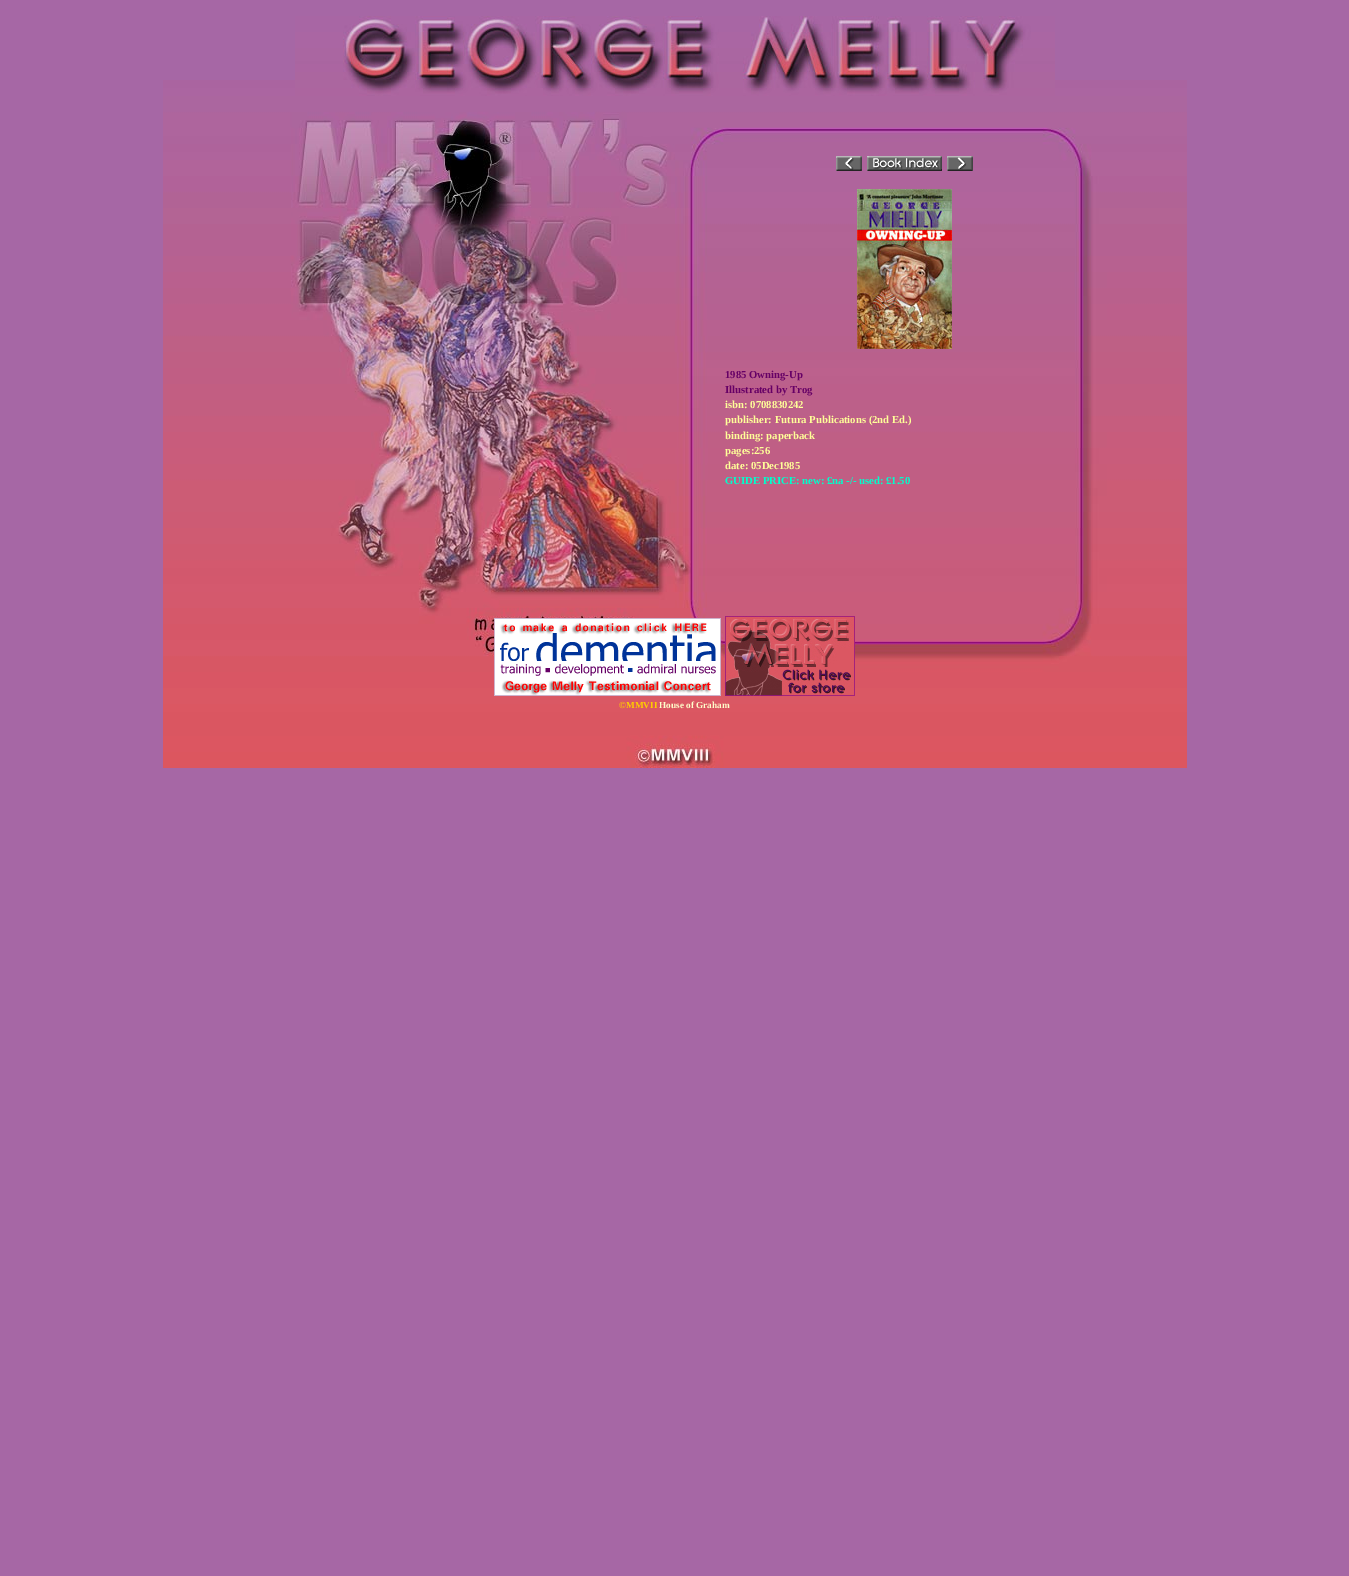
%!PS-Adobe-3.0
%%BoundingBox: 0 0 1349 1576
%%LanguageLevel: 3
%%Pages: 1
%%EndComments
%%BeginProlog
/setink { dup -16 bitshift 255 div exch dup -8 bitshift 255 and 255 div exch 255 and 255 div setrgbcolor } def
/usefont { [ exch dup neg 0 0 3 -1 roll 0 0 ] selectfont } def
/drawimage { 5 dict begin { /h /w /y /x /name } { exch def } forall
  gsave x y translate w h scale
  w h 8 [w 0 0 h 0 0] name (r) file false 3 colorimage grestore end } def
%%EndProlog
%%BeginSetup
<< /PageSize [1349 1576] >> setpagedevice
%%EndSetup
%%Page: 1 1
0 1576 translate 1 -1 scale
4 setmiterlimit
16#A667A5 setink
0 0 1349 1576 rectfill
(img1.raw) 163 80 1024 688 drawimage
(img2.raw) 295 16 760 80 drawimage
(img3.raw) 836 156 26 15 drawimage
(img4.raw) 867 156 75 15 drawimage
(img5.raw) 947 156 26 15 drawimage
(img6.raw) 857 189 95 160 drawimage
/LiberationSerif-Bold 10.7 usefont
16#660066 setink
725 378 moveto (1985 Owning-Up) show
725 393 moveto (Illustrated by Trog) show
16#FFFF99 setink
[
    [(isbn: 0708830242) 725 408]
    [(publisher: Futura Publications \(2nd Ed.\)) 725 423]
    [(binding: paperback) 725 439]
    [(pages:256) 725 454]
    [(date: 05Dec1985) 725 469]
] { aload pop moveto show } forall
16#00FFCC setink
725 484 moveto (GUIDE PRICE: new: £na -/- used: £1.50) show
(img7.raw) 494 618 227 78 drawimage
(img8.raw) 725 616 130 80 drawimage
/LiberationSerif-Bold 9.25 usefont
16#FFCC00 setink
619 708 moveto (©MMVII) show
16#FFFFCC setink
659 708 moveto (House of Graham) show
showpage
%%EOF
